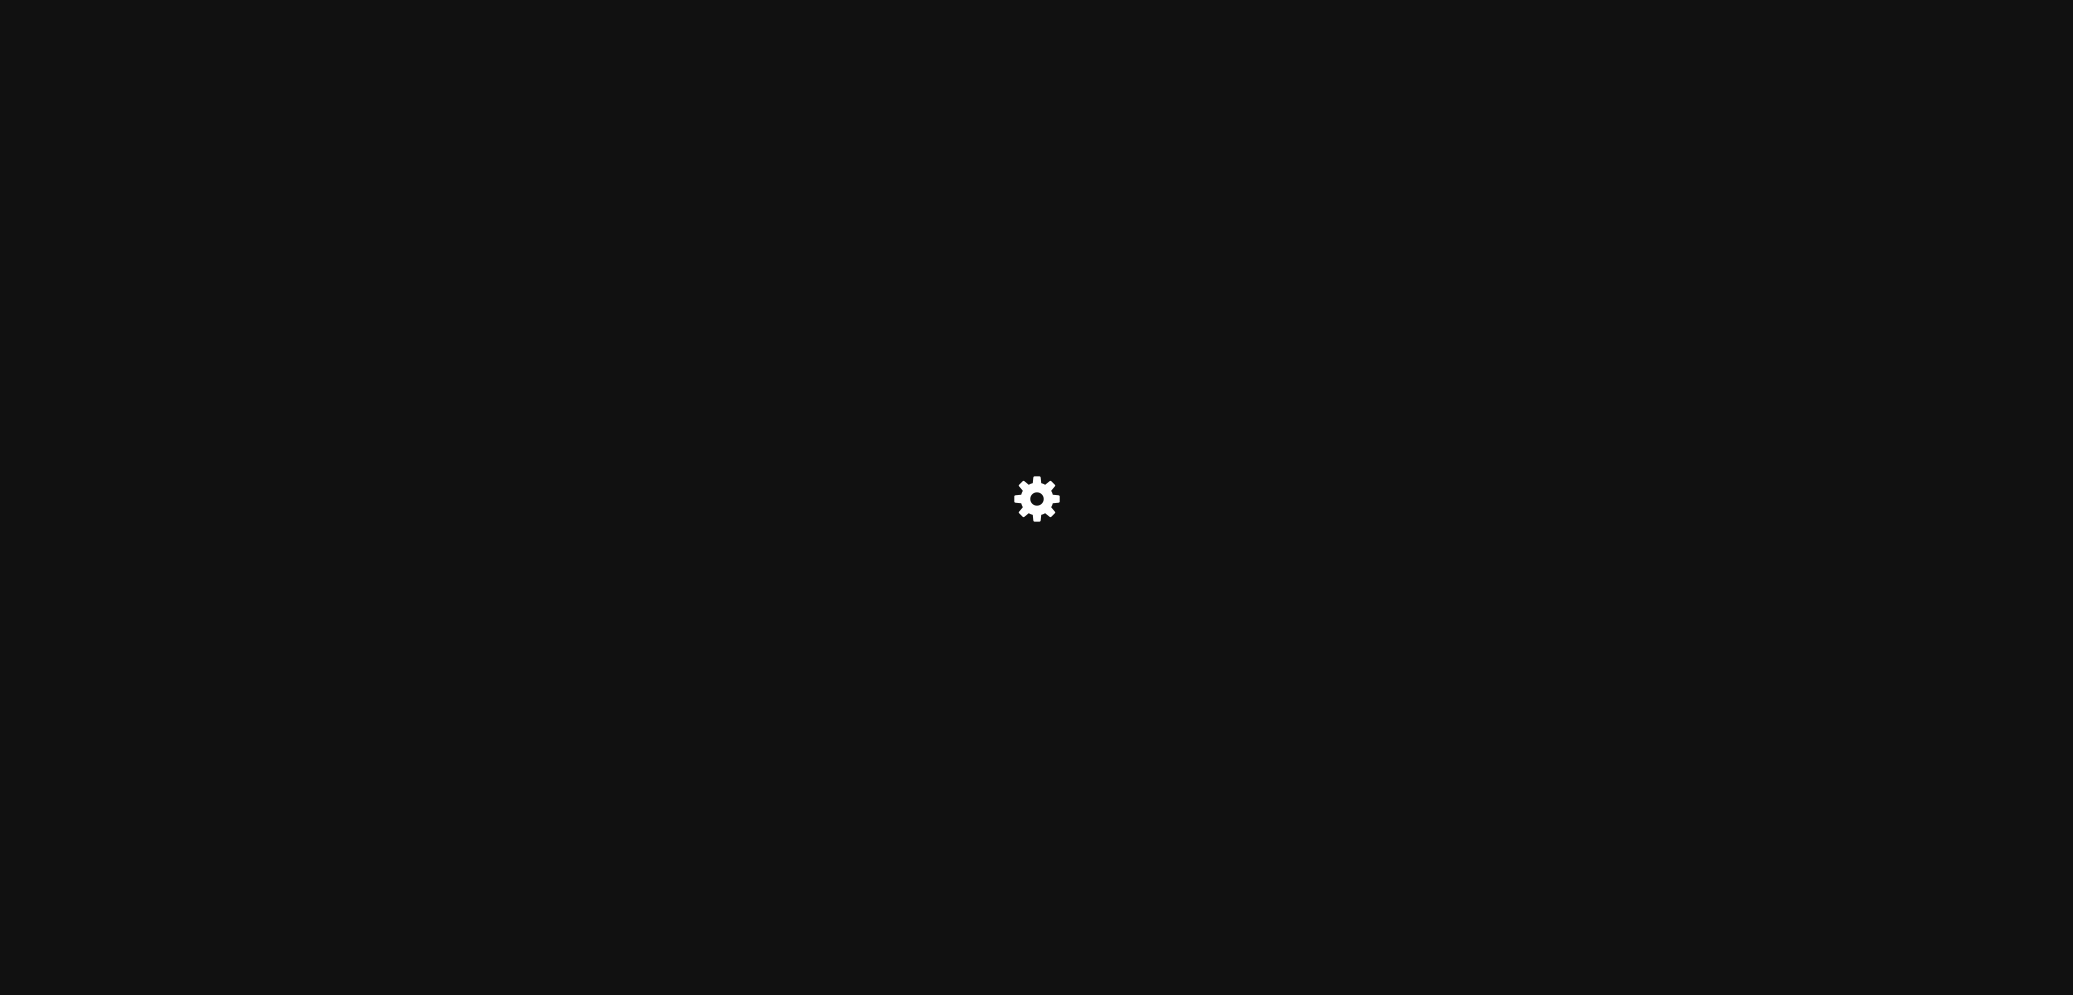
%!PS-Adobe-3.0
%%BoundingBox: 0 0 2073 995
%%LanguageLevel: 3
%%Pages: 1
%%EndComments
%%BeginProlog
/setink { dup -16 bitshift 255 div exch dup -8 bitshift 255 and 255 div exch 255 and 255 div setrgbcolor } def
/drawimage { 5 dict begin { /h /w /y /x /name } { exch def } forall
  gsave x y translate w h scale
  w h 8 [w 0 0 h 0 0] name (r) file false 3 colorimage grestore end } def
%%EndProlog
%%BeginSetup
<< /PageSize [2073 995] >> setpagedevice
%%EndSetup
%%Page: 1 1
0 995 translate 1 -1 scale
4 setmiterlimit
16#111111 setink
0 0 2073 995 rectfill
(img1.raw) 1014 476 46 46 drawimage
showpage
%%EOF
